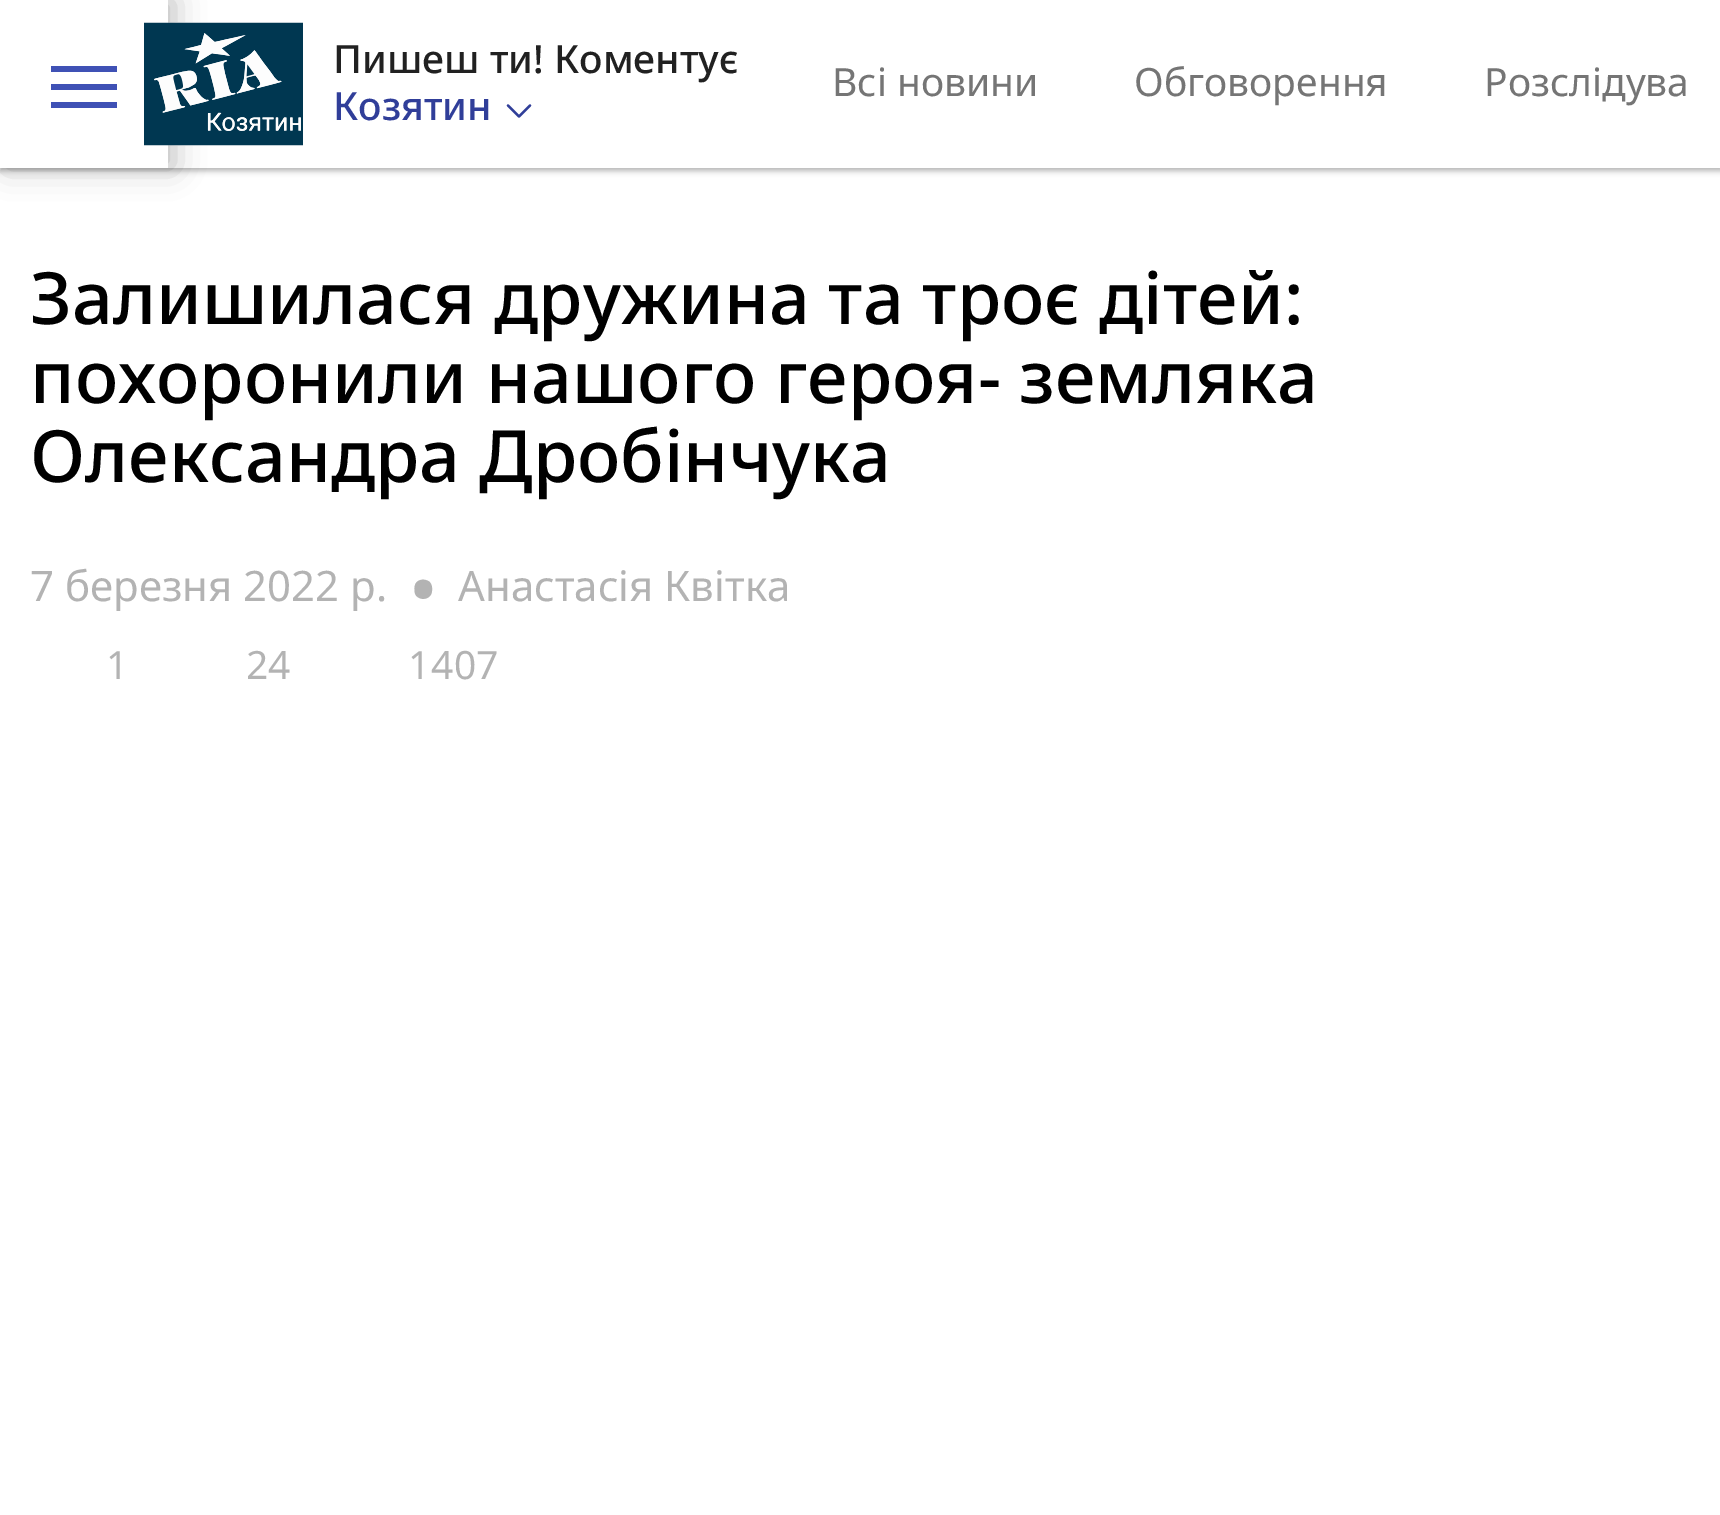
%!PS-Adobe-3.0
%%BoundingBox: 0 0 1720 1515
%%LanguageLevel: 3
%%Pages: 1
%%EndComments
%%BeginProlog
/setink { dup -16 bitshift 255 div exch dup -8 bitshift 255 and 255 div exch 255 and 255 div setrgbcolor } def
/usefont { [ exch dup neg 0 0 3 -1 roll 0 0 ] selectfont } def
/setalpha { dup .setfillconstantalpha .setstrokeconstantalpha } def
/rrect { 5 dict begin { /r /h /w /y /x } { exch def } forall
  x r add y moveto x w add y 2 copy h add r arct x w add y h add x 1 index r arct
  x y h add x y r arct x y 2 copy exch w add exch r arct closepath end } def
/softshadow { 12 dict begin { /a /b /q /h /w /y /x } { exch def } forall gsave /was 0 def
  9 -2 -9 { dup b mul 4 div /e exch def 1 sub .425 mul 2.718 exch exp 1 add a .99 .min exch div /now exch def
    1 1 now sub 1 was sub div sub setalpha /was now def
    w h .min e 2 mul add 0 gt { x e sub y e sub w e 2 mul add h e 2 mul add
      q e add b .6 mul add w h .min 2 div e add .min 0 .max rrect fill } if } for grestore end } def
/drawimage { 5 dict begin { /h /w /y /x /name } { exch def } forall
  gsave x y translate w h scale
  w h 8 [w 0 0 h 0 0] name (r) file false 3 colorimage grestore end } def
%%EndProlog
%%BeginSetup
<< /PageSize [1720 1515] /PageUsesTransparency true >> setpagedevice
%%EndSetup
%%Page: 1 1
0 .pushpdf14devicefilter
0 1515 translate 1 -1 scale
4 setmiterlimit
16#FFFFFF setink
0 0 1720 1515 rectfill
16#000000 setink
0 3 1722 168 0 3 0.3 softshadow
16#FFFFFF setink
0 0 1720 168 rectfill
gsave
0 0 moveto 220 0 lineto 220 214 lineto 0 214 lineto closepath 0 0 moveto 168 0 lineto 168 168 lineto 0 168 lineto closepath eoclip newpath
16#000000 setink
6 0 168 168 0 15 0.25 softshadow
grestore
[
    [51 66 66 6 16#3F51B5]
    [51 84 66 6 16#3F51B5]
    [51 102 66 6 16#3F51B5]
] { aload pop setink rectfill } forall
(img1.raw) 144 22 159 124 drawimage
/NotoSans-Medium 39 usefont
16#212121 setink
333 73 moveto (Пишеш ти! Коментує) show
16#303E99 setink
333 120 moveto (Козятин) show
2.2 setlinewidth
1 setlinecap
1 setlinejoin
530 105.5 moveto 519 116.5 lineto 508 105.5 lineto stroke
/NotoSans-Regular 39 usefont
16#757575 setink
[
    [(Всі новини) 832 96]
    [(Обговорення) 1134 96]
    [(Розслідува) 1484 96]
] { aload pop moveto show } forall
/NotoSans-Medium 72 usefont
16#000000 setink
[
    [(Залишилася дружина та троє дітей:) 30 324]
    [(похоронили нашого героя- земляка) 30 403]
    [(Олександра Дробінчука) 30 482]
] { aload pop moveto show } forall
/NotoSans-Regular 42 usefont
16#B3B3B3 setink
30 601 moveto (7 березня 2022 р.) show
/NotoSans-Regular 144 usefont
404 640 moveto (·) show
/NotoSans-Regular 42 usefont
458 601 moveto (Анастасія Квітка) show
/NotoSans-Regular 39 usefont
106 679 moveto 0.5 0 (1) ashow
246 679 moveto (24) show
408 679 moveto 0.5 0 (1407) ashow
.poppdf14devicefilter showpage
%%EOF
